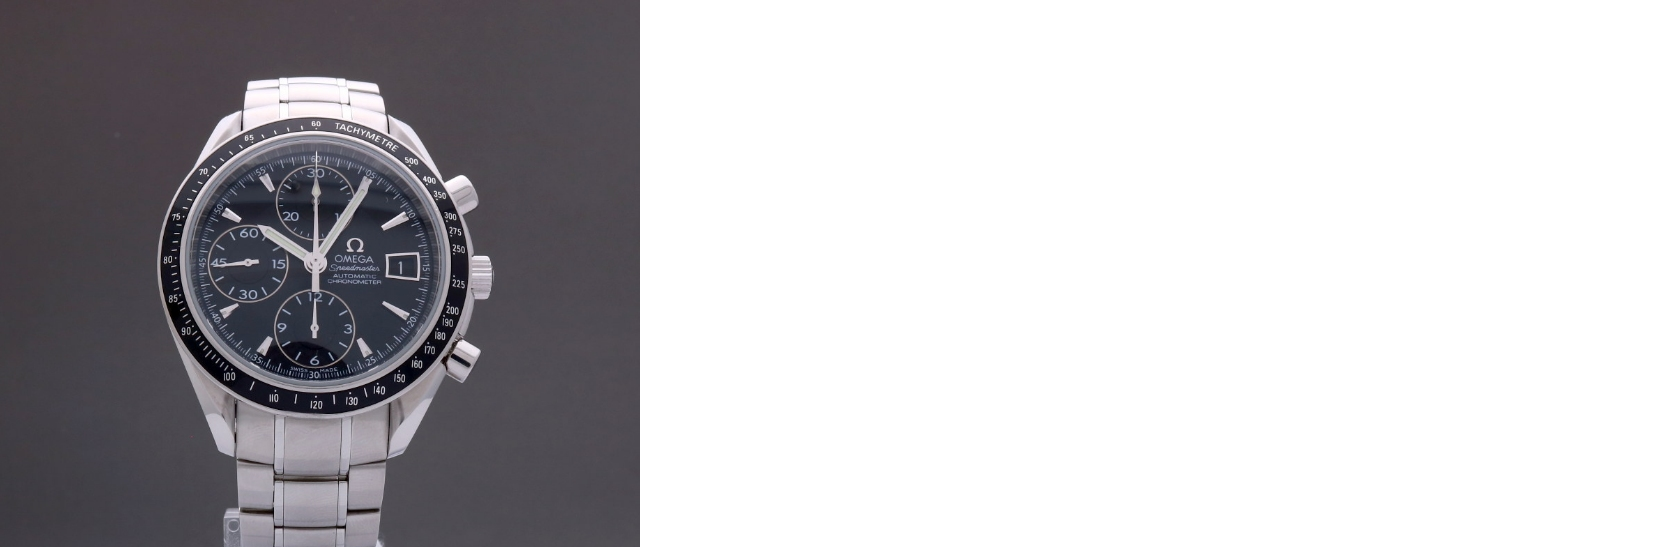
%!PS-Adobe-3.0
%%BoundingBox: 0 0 1679 547
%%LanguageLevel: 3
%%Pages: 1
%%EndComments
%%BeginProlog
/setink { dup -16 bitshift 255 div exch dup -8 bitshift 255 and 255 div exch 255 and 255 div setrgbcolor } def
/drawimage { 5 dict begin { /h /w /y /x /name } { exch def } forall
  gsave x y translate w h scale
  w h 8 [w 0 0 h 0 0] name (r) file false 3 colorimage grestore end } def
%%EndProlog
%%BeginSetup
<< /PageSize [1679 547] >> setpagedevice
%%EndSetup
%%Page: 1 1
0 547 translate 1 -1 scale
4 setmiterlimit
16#FFFFFF setink
0 0 1679 547 rectfill
(img1.raw) 0 0 640 547 drawimage
showpage
%%EOF
